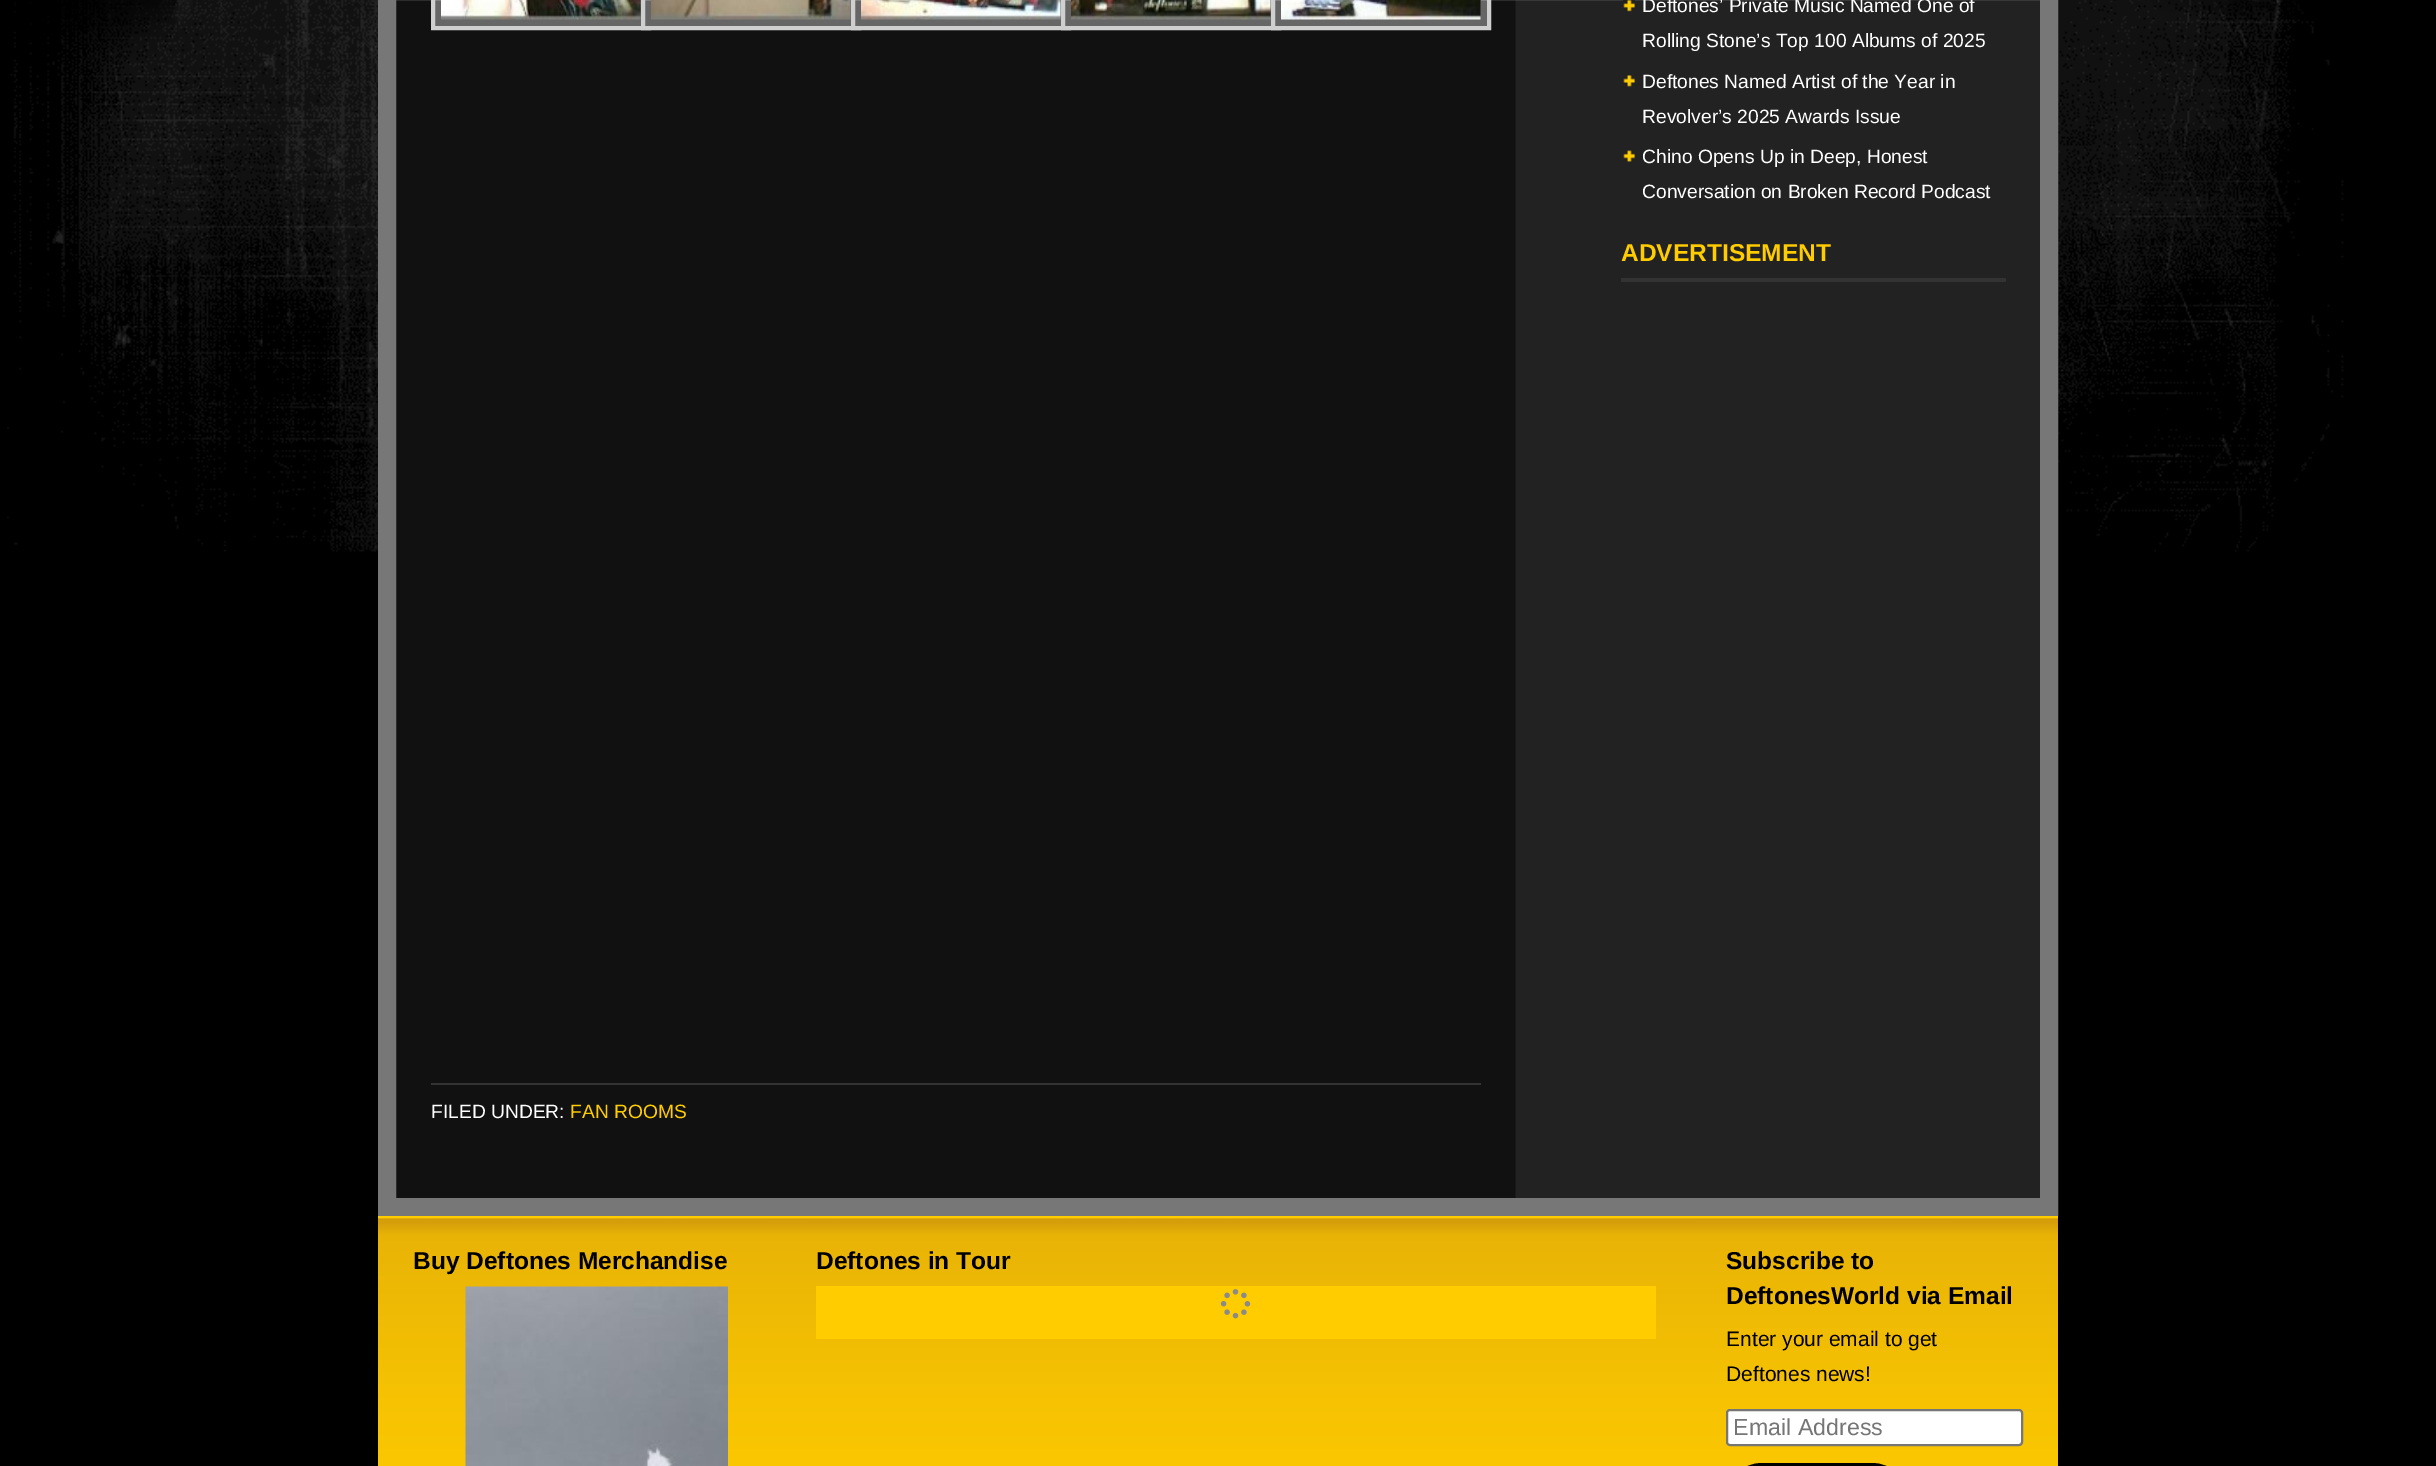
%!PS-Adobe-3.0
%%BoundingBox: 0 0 2436 1466
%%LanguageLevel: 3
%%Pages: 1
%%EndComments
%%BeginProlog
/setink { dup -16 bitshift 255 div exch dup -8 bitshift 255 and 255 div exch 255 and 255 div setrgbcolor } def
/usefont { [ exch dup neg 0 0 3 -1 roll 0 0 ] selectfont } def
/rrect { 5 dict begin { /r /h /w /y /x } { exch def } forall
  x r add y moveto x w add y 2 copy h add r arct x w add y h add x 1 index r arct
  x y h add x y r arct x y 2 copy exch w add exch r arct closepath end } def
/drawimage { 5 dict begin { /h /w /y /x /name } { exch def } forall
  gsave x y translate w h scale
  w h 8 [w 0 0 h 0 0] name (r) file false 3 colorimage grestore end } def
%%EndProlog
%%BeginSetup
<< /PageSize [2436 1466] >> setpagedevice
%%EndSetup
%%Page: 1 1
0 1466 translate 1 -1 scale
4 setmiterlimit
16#000000 setink
0 0 2436 1466 rectfill
(img1.raw) 7 0 2337 552 drawimage
(img2.raw) 396 0 1644 1198 drawimage
16#777777 setink
18 setlinewidth
387 -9 1662 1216 rectstroke
(img3.raw) 1623 0 12 12 drawimage
/LiberationSans-Regular 19.25 usefont
16#FFFFFF setink
1642 12 moveto (Deftones’ Private Music Named One of) show
1642 47 moveto (Rolling Stone’s Top 100 Albums of 2025) show
(img4.raw) 1623 75 12 12 drawimage
1642 88 moveto (Deftones Named Artist of the Year in) show
1642 123 moveto (Revolver’s 2025 Awards Issue) show
(img5.raw) 1623 150 12 12 drawimage
1642 163 moveto (Chino Opens Up in Deep, Honest) show
1642 198 moveto (Conversation on Broken Record Podcast) show
16#333333 setink
1621 278 385 4 rectfill
/LiberationSans-Bold 24.5 usefont
16#FFCC00 setink
1621 261 moveto (ADVERTISEMENT) show
16#666666 setink
435 0 206 26 rectfill
16#CFCFCF setink
4 setlinewidth
433 -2 216 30 rectstroke
(img6.raw) 441 0 200 20 drawimage
16#666666 setink
645 0 206 26 rectfill
16#CFCFCF setink
643 -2 216 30 rectstroke
(img7.raw) 651 0 200 20 drawimage
16#666666 setink
855 0 206 26 rectfill
16#CFCFCF setink
853 -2 216 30 rectstroke
(img8.raw) 861 0 200 20 drawimage
16#666666 setink
1065 0 206 26 rectfill
16#CFCFCF setink
1063 -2 216 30 rectstroke
(img9.raw) 1071 0 200 20 drawimage
16#666666 setink
1273 -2 moveto 1489 -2 lineto 1489 28 lineto 1273 28 lineto closepath gsave fill grestore
16#CFCFCF setink
stroke
(img10.raw) 1281 0 200 20 drawimage
16#333333 setink
431 1083 1050 2 rectfill
/LiberationSans-Regular 19.25 usefont
16#FFFFFF setink
431 1118 moveto (FILED UNDER:) show
16#FFCC00 setink
570 1118 moveto (FAN ROOMS) show
378 1216 1680 2 rectfill
(img11.raw) 378 1218 1680 248 drawimage
/LiberationSans-Bold 24.5 usefont
16#000000 setink
413 1269 moveto (Buy Deftones Merchandise) show
(img12.raw) 465 1286 263 180 drawimage
816 1269 moveto (Deftones in Tour) show
16#FFCC00 setink
816 1286 840 53 rectfill
(img13.raw) 1220 1289 31 30 drawimage
16#000000 setink
1726 1269 moveto (Subscribe to) show
1726 1304 moveto (DeftonesWorld via Email) show
/LiberationSans-Regular 21 usefont
1726 1346 moveto (Enter your email to get) show
1726 1381 moveto (Deftones news!) show
16#FFFFFF setink
1727 1410 295 35 3 rrect gsave fill grestore
16#767676 setink
2 setlinewidth
stroke
/LiberationSans-Regular 23.25 usefont
16#757575 setink
1733 1435 moveto (Email Address) show
16#000000 setink
4 setlinewidth
1728 1465 178 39 34 rrect stroke
showpage
%%EOF
